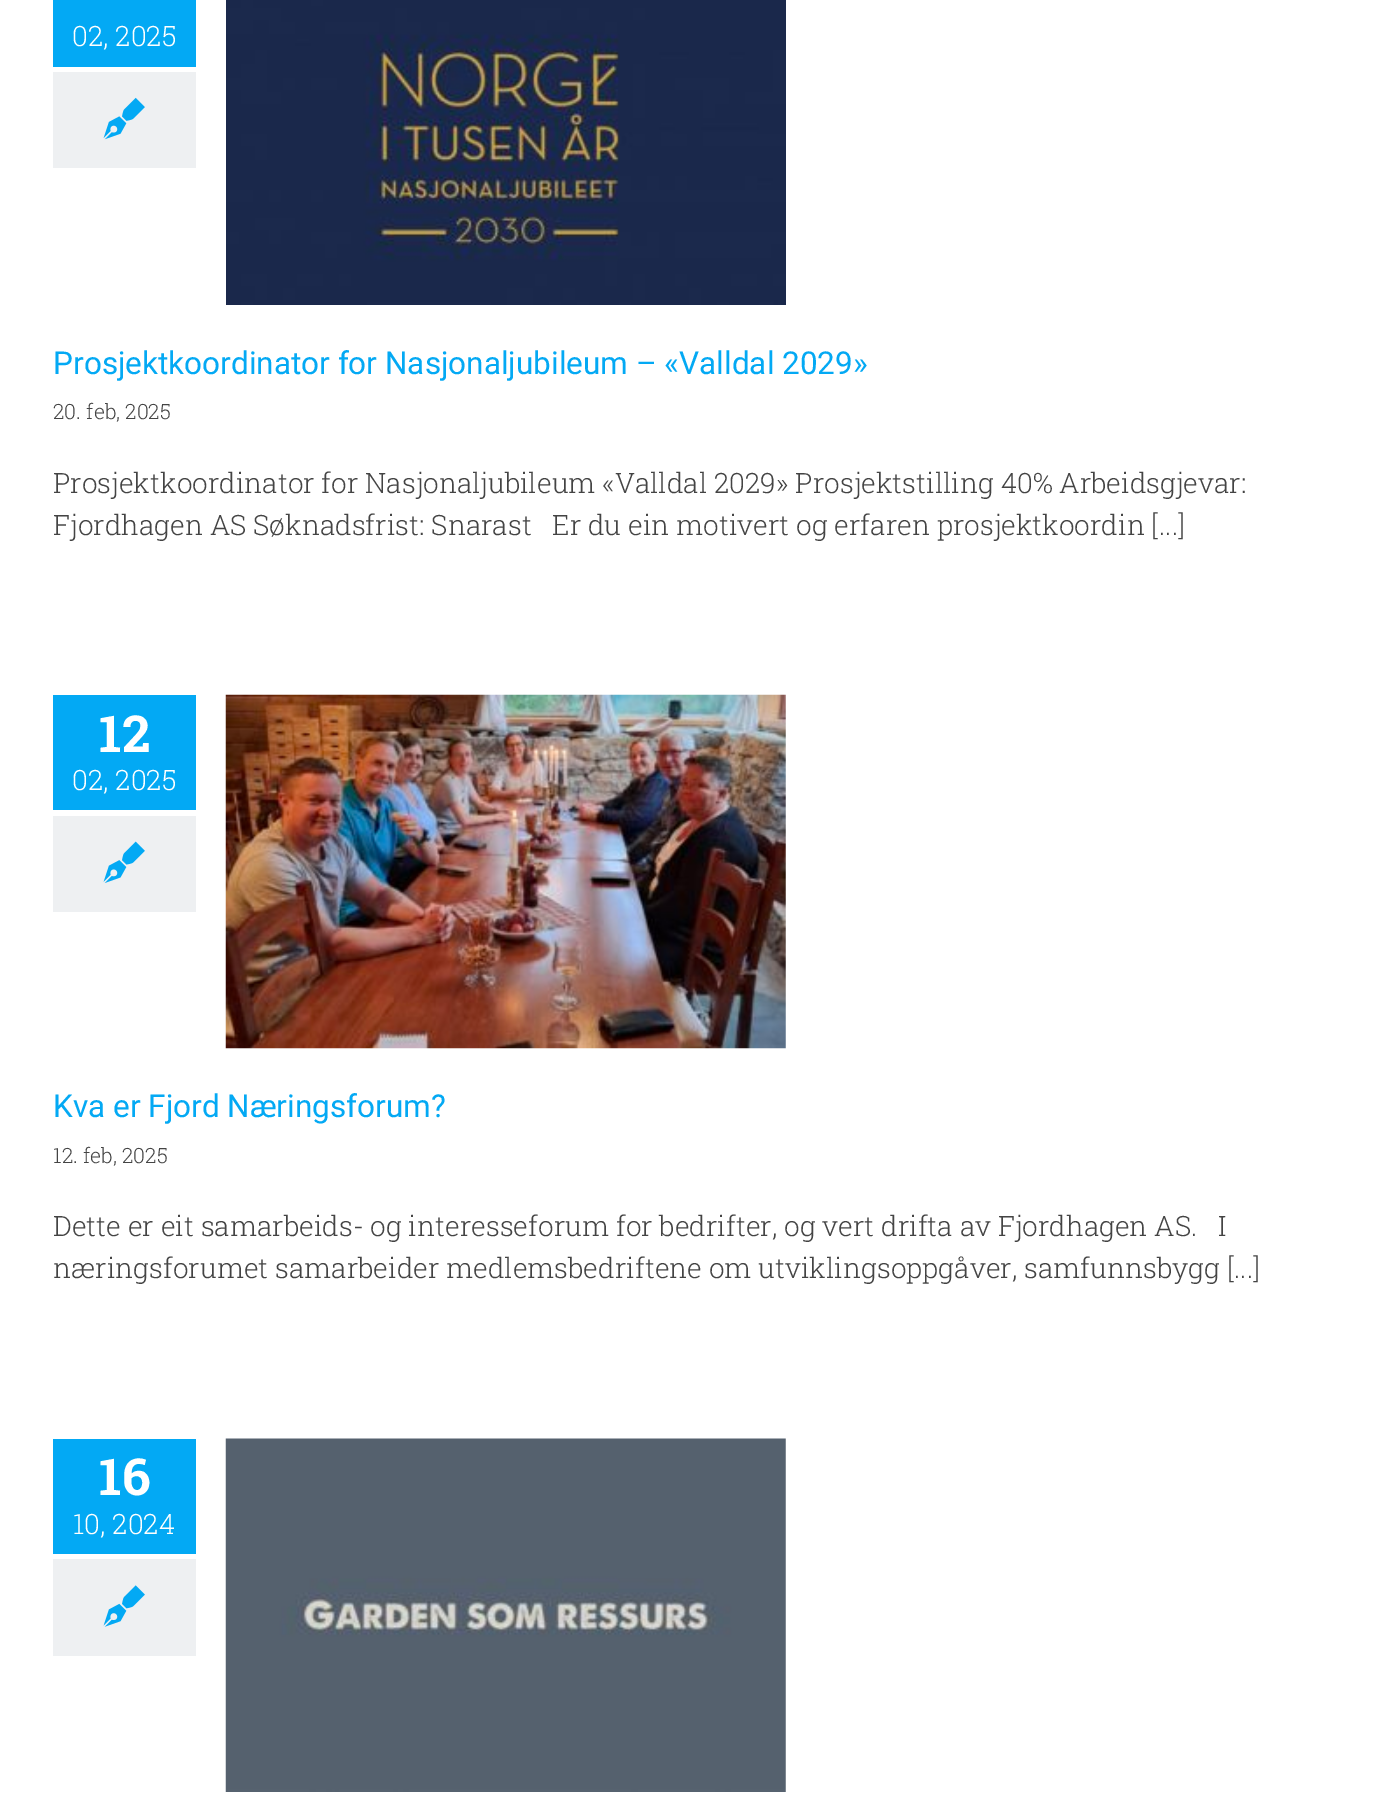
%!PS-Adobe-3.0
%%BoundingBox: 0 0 1377 1796
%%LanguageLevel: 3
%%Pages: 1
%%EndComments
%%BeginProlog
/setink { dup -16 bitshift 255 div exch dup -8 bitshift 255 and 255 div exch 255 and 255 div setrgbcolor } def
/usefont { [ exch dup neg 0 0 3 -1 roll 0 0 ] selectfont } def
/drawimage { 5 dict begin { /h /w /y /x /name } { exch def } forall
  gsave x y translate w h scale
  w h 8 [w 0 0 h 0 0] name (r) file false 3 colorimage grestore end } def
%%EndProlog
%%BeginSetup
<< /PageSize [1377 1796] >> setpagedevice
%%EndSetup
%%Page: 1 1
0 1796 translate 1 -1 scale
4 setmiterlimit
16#FFFFFF setink
0 0 1377 1796 rectfill
16#03A9F4 setink
53 0 143 67 rectfill
/RobotoSlab-Light 28 usefont
16#FFFFFF setink
72 46 moveto (02, 2025) show
16#EEF0F2 setink
53 72 143 96 rectfill
(img1.raw) 103 97 42 43 drawimage
(img2.raw) 226 0 560 305 drawimage
/Roboto-Regular 31.5 usefont
16#03A9F4 setink
53 374 moveto (Prosjektkoordinator for Nasjonaljubileum – «Valldal 2029») show
/RobotoSlab-Light 21 usefont
16#444444 setink
53 419 moveto (20. feb, 2025) show
/RobotoSlab-Light 28 usefont
53 493 moveto (Prosjektkoordinator for Nasjonaljubileum «Valldal 2029» Prosjektstilling 40% Arbeidsgjevar:) show
53 535 moveto (Fjordhagen AS Søknadsfrist: Snarast   Er du ein motivert og erfaren prosjektkoordin [...]) show
16#03A9F4 setink
53 695 143 115 rectfill
/RobotoSlab-Bold 51 usefont
16#FFFFFF setink
99 752 moveto (12) show
/RobotoSlab-Light 28 usefont
72 790 moveto (02, 2025) show
16#EEF0F2 setink
53 816 143 96 rectfill
(img3.raw) 103 841 42 42 drawimage
(img4.raw) 225 694 561 355 drawimage
/Roboto-Regular 31.5 usefont
16#03A9F4 setink
53 1117 moveto (Kva er Fjord Næringsforum?) show
/RobotoSlab-Light 21 usefont
16#444444 setink
53 1163 moveto (12. feb, 2025) show
/RobotoSlab-Light 28 usefont
53 1236 moveto (Dette er eit samarbeids- og interesseforum for bedrifter, og vert drifta av Fjordhagen AS.   I) show
53 1278 moveto (næringsforumet samarbeider medlemsbedriftene om utviklingsoppgåver, samfunnsbygg [...]) show
16#03A9F4 setink
53 1439 143 115 rectfill
/RobotoSlab-Bold 51 usefont
16#FFFFFF setink
99 1495 moveto (16) show
/RobotoSlab-Light 28 usefont
73 1534 moveto (10, 2024) show
16#EEF0F2 setink
53 1559 143 97 rectfill
(img5.raw) 103 1585 42 42 drawimage
(img6.raw) 225 1438 561 354 drawimage
showpage
%%EOF
